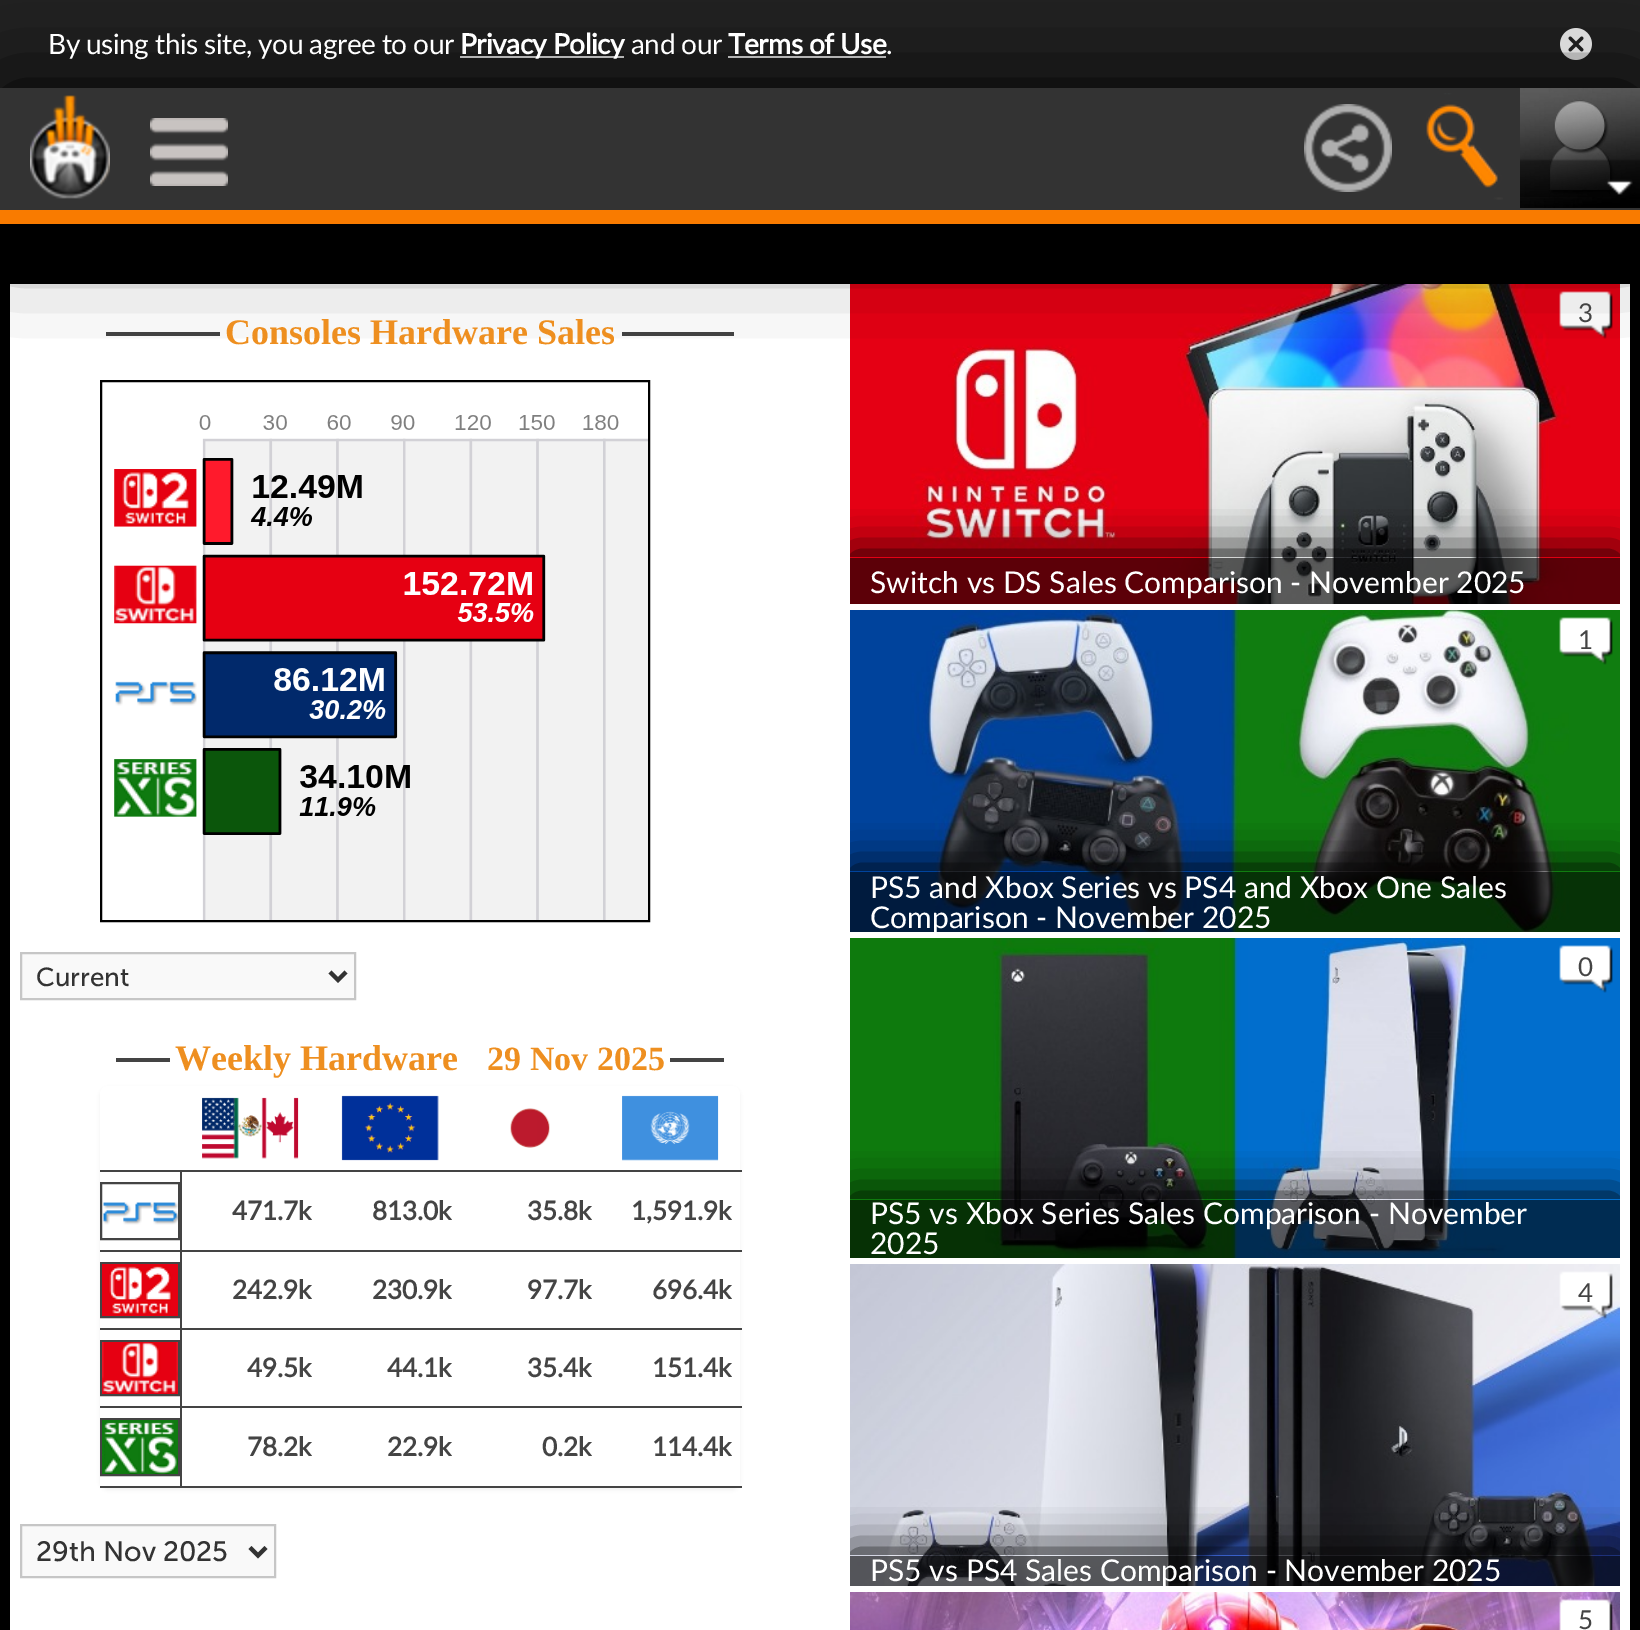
%!PS-Adobe-3.0
%%BoundingBox: 0 0 1640 1630
%%LanguageLevel: 3
%%Pages: 1
%%EndComments
%%BeginProlog
/setink { dup -16 bitshift 255 div exch dup -8 bitshift 255 and 255 div exch 255 and 255 div setrgbcolor } def
/usefont { [ exch dup neg 0 0 3 -1 roll 0 0 ] selectfont } def
/setalpha { dup .setfillconstantalpha .setstrokeconstantalpha } def
/rrect { 5 dict begin { /r /h /w /y /x } { exch def } forall
  x r add y moveto x w add y 2 copy h add r arct x w add y h add x 1 index r arct
  x y h add x y r arct x y 2 copy exch w add exch r arct closepath end } def
/softshadow { 12 dict begin { /a /b /q /h /w /y /x } { exch def } forall gsave /was 0 def
  9 -2 -9 { dup b mul 4 div /e exch def 1 sub .425 mul 2.718 exch exp 1 add a .99 .min exch div /now exch def
    1 1 now sub 1 was sub div sub setalpha /was now def
    w h .min e 2 mul add 0 gt { x e sub y e sub w e 2 mul add h e 2 mul add
      q e add b .6 mul add w h .min 2 div e add .min 0 .max rrect fill } if } for grestore end } def
/drawimage { 5 dict begin { /h /w /y /x /name } { exch def } forall
  gsave x y translate w h scale
  w h 8 [w 0 0 h 0 0] name (r) file false 3 colorimage grestore end } def
%%EndProlog
%%BeginSetup
<< /PageSize [1640 1630] /PageUsesTransparency true >> setpagedevice
%%EndSetup
%%Page: 1 1
0 .pushpdf14devicefilter
0 1630 translate 1 -1 scale
4 setmiterlimit
16#000000 setink
0 0 1640 1630 rectfill
[
    [0 0 1640 88 16#222222]
    [460 56 164 2 16#FFFFFF]
    [728 56 158 2 16#FFFFFF]
] { aload pop setink rectfill } forall
(img7.raw) 1560 28 32 32 drawimage
[
    [10 284 1620 1346 16#FFFFFF]
    [106 332 114 4 16#444444]
    [622 332 112 4 16#444444]
] { aload pop setink rectfill } forall
(img17.raw) 850 284 770 320 drawimage
(img18.raw) 1559 291 54 48 drawimage
16#000000 setink
0 90 1640 136 0 50 1 softshadow
16#333333 setink
0 88 1640 122 rectfill
(img1.raw) 30 95 80 104 drawimage
(img2.raw) 150 118 78 68 drawimage
(img3.raw) 1304 104 88 88 drawimage
(img4.raw) 1426 93 77 107 drawimage
(img5.raw) 1520 88 120 120 drawimage
(img6.raw) 1520 159 120 38 drawimage
16#F97B00 setink
0 210 1640 14 rectfill
/Lato-Regular 28 usefont
16#FFFFFF setink
48 54 moveto -0.5 0 (By using this site, you agree to our) ashow
/Lato-Bold 28 usefont
460 54 moveto -0.5 0 (Privacy Policy) ashow
/Lato-Regular 28 usefont
631 54 moveto -0.5 0 (and our) ashow
/Lato-Bold 28 usefont
728 54 moveto -0.5 0 (Terms of Use) ashow
/Lato-Regular 28 usefont
886 54 moveto -0.5 0 (.) ashow
/LiberationSerif-Bold 36 usefont
16#EE8F20 setink
225 344 moveto (Consoles Hardware Sales) show
16#000000 setink
2 setlinewidth
101 381 548 540 rectstroke
(img8.raw) 114 415 534 505 drawimage
16#F9F9F9 setink
21 953 moveto 355 953 lineto 355 999 lineto 21 999 lineto closepath gsave fill grestore
16#C6C6C6 setink
stroke
16#333333 setink
4 setlinewidth
330 972 moveto 338 980 lineto 346 972 lineto stroke
/MuseoSans-Regular 26 usefont
36 986 moveto (Current) show
16#444444 setink
116 1058 54 4 rectfill
/LiberationSerif-Bold 36 usefont
16#EE8F20 setink
175 1070 moveto (Weekly Hardware) show
/LiberationSerif-Bold 34 usefont
487 1070 moveto (29 Nov 2025) show
16#444444 setink
670 1058 54 4 rectfill
16#000000 setink
100 1088 640 402 8 2 0.05 softshadow
16#FFFFFF setink
100 1086 640 402 8 rrect fill
[
    [100 1482 640 4 16#FFFFFF]
    [180 1486 562 2 16#444444]
    [180 1406 2 82 16#444444]
    [180 1406 562 2 16#444444]
    [180 1328 2 80 16#444444]
    [180 1328 562 2 16#444444]
    [180 1250 2 80 16#444444]
    [180 1250 562 2 16#444444]
    [180 1170 2 82 16#444444]
    [180 1170 562 2 16#444444]
] { aload pop setink rectfill } forall
(img9.raw) 622 1095 97 66 drawimage
(img10.raw) 202 1097 97 62 drawimage
(img11.raw) 341 1095 98 66 drawimage
(img12.raw) 510 1108 40 40 drawimage
[
    [180 1170 2 2 16#FFFFFF]
    [100 1170 82 2 16#444444]
    [100 1250 82 2 16#444444]
] { aload pop setink rectfill } forall
2 setlinewidth
101 1183 78 56 rectstroke
(img13.raw) 103 1202 75 23 drawimage
/Lato-Bold 26 usefont
[
    [(471.7k) 232 1220]
    [(813.0k) 372 1220]
    [(35.8k) 527 1220]
    [(1,591.9k) 631 1220]
] { aload pop moveto show } forall
100 1328 82 2 rectfill
101 1263 78 54 rectstroke
(img14.raw) 102 1264 76 52 drawimage
[
    [(242.9k) 232 1299]
    [(230.9k) 372 1299]
    [(97.7k) 527 1299]
    [(696.4k) 652 1299]
] { aload pop moveto show } forall
100 1406 82 2 rectfill
101 1341 78 54 rectstroke
(img15.raw) 102 1342 76 52 drawimage
[
    [(49.5k) 247 1377]
    [(44.1k) 387 1377]
    [(35.4k) 527 1377]
    [(151.4k) 652 1377]
] { aload pop moveto show } forall
100 1486 82 2 rectfill
101 1419 78 56 rectstroke
(img16.raw) 102 1420 76 54 drawimage
[
    [(78.2k) 247 1456]
    [(22.9k) 387 1456]
    [(0.2k) 542 1456]
    [(114.4k) 652 1456]
] { aload pop moveto show } forall
16#F9F9F9 setink
21 1525 moveto 275 1525 lineto 275 1577 lineto 21 1577 lineto closepath gsave fill grestore
16#C6C6C6 setink
stroke
16#333333 setink
4 setlinewidth
250 1547.5 moveto 258 1555.5 lineto 266 1547.5 lineto stroke
/MuseoSans-Regular 28 usefont
36 1561 moveto (29th Nov 2025) show
/Lato-Regular 26 usefont
16#444444 setink
1578 322 moveto (3) show
gsave
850 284 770 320 rectclip
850 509 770 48 rectclip
16#000000 setink
850 554 770 86 0 22 1 softshadow
grestore
0.6 setalpha
16#000000 setink
850 558 770 46 rectfill
/Lato-Regular 30 usefont
1 setalpha
16#FFFFFF setink
870 593 moveto (Switch vs DS Sales Comparison - November 2025) show
(img19.raw) 850 610 770 322 drawimage
(img20.raw) 1559 617 54 48 drawimage
/Lato-Regular 26 usefont
16#444444 setink
1578 649 moveto (1) show
gsave
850 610 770 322 rectclip
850 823 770 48 rectclip
16#000000 setink
850 868 770 100 0 22 1 softshadow
grestore
0.6 setalpha
16#000000 setink
850 872 770 60 rectfill
/Lato-Regular 30 usefont
1 setalpha
16#FFFFFF setink
870 898 moveto (PS5 and Xbox Series vs PS4 and Xbox One Sales) show
gsave
850 610 770 322 rectclip
870 928 moveto (Comparison - November 2025) show
grestore
(img21.raw) 850 938 770 320 drawimage
(img22.raw) 1559 945 54 48 drawimage
/Lato-Regular 26 usefont
16#444444 setink
1578 976 moveto (0) show
gsave
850 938 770 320 rectclip
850 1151 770 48 rectclip
16#000000 setink
850 1196 770 98 0 22 1 softshadow
grestore
0.6 setalpha
16#000000 setink
850 1200 770 58 rectfill
/Lato-Regular 30 usefont
1 setalpha
16#FFFFFF setink
870 1224 moveto (PS5 vs Xbox Series Sales Comparison - November) show
870 1254 moveto (2025) show
(img23.raw) 850 1264 770 322 drawimage
(img24.raw) 1559 1271 54 48 drawimage
/Lato-Regular 26 usefont
16#444444 setink
1578 1302 moveto (4) show
gsave
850 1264 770 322 rectclip
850 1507 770 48 rectclip
16#000000 setink
850 1552 770 70 0 22 1 softshadow
grestore
0.6 setalpha
16#000000 setink
850 1556 770 30 rectfill
gsave
850 1264 770 322 rectclip
/Lato-Regular 30 usefont
1 setalpha
16#FFFFFF setink
870 1581 moveto (PS5 vs PS4 Sales Comparison - November 2025) show
grestore
1 setalpha
(img25.raw) 850 1592 770 38 drawimage
(img26.raw) 1559 1599 54 31 drawimage
16#444444 setink
1578 1629 moveto (5) show
.poppdf14devicefilter showpage
%%EOF
